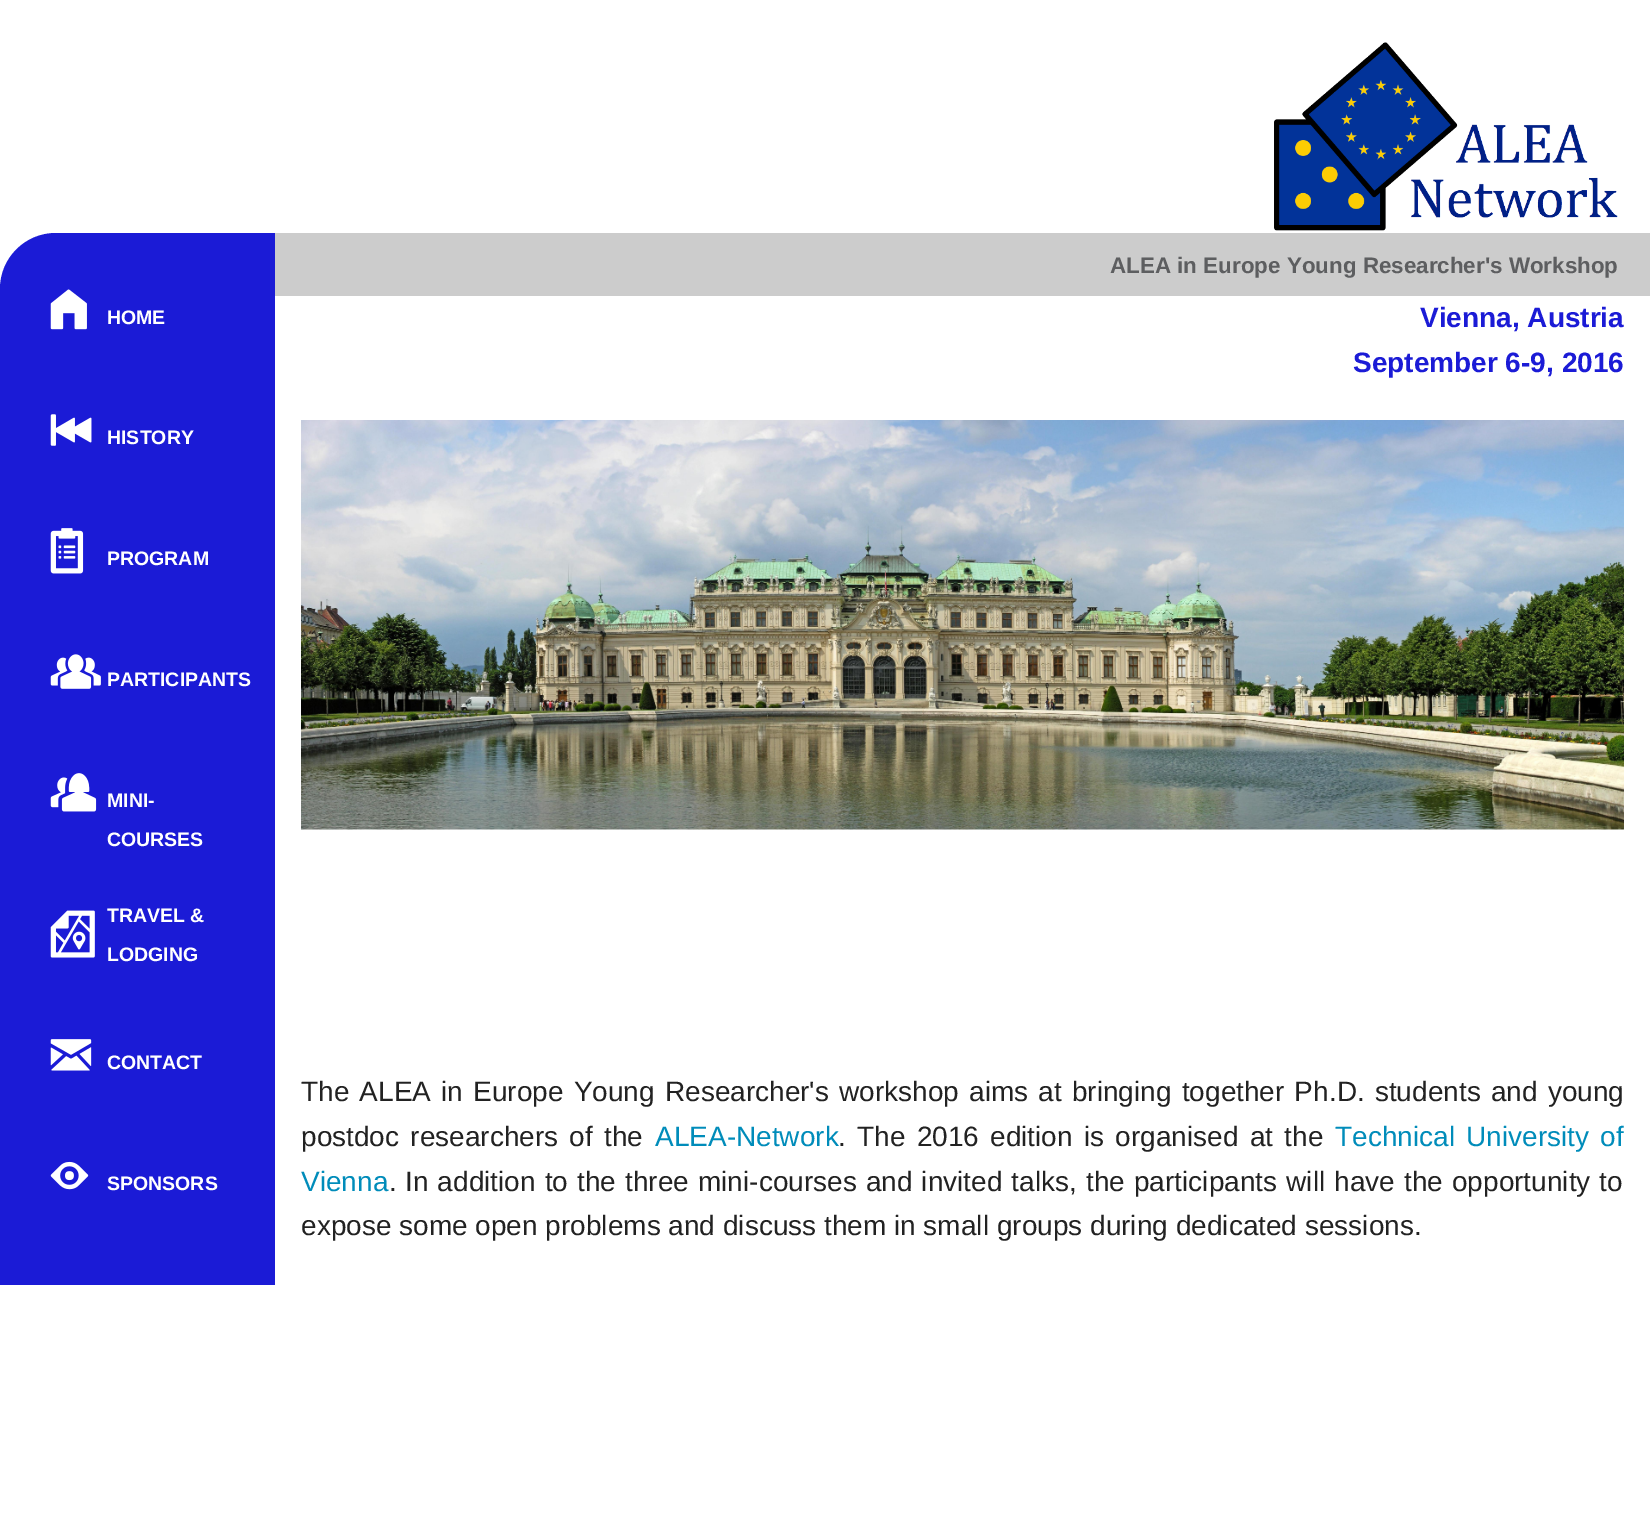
%!PS-Adobe-3.0
%%BoundingBox: 0 0 1650 1518
%%LanguageLevel: 3
%%Pages: 1
%%EndComments
%%BeginProlog
/setink { dup -16 bitshift 255 div exch dup -8 bitshift 255 and 255 div exch 255 and 255 div setrgbcolor } def
/usefont { [ exch dup neg 0 0 3 -1 roll 0 0 ] selectfont } def
/drawimage { 5 dict begin { /h /w /y /x /name } { exch def } forall
  gsave x y translate w h scale
  w h 8 [w 0 0 h 0 0] name (r) file false 3 colorimage grestore end } def
%%EndProlog
%%BeginSetup
<< /PageSize [1650 1518] >> setpagedevice
%%EndSetup
%%Page: 1 1
0 1518 translate 1 -1 scale
4 setmiterlimit
16#FFFFFF setink
0 0 1650 1518 rectfill
(img1.raw) 1274 42 344 189 drawimage
16#1B1BD6 setink
56 233 moveto 275 233 lineto 275 1285 lineto 0 1285 lineto 0 289 lineto 0 258 25 233 56 233 curveto closepath fill
(img2.raw) 50 289 37 41 drawimage
/LiberationSans-Bold 19.5 usefont
16#FFFFFF setink
107 324 moveto (HOME) show
(img3.raw) 50 414 42 32 drawimage
107 444 moveto (HISTORY) show
(img4.raw) 50 528 34 46 drawimage
107 565 moveto (PROGRAM) show
(img5.raw) 50 654 51 35 drawimage
107 686 moveto (PARTICIPANTS) show
(img6.raw) 50 773 47 39 drawimage
107 807 moveto (MINI-) show
107 846 moveto (COURSES) show
(img7.raw) 50 910 45 48 drawimage
107 922 moveto (TRAVEL &) show
107 961 moveto (LODGING) show
(img8.raw) 50 1039 42 32 drawimage
107 1069 moveto (CONTACT) show
(img9.raw) 50 1161 39 29 drawimage
107 1190 moveto (SPONSORS) show
16#CCCCCC setink
275 233 1375 63 rectfill
/LiberationSans-Bold 22.4 usefont
16#5D5E60 setink
1110 273 moveto (ALEA in Europe Young Researcher's Workshop) show
/LiberationSans-Bold 28 usefont
16#1B1BD6 setink
1420 327 moveto (Vienna, Austria) show
1353 372 moveto (September 6-9, 2016) show
(img10.raw) 301 420 1323 410 drawimage
/LiberationSans-Regular 28 usefont
16#222222 setink
301 1101 moveto 2.4 0 32 (The ALEA in Europe Young Researcher's workshop aims at bringing together Ph.D. students and young) widthshow
301 1146 moveto 3.5 0 32 (postdoc researchers of the) widthshow
16#008CBA setink
655 1146 moveto (ALEA-Network) show
16#222222 setink
838 1146 moveto 3.5 0 32 (. The 2016 edition is organised at the) widthshow
16#008CBA setink
1335 1146 moveto 3.5 0 32 (Technical University of) widthshow
301 1191 moveto (Vienna) show
16#222222 setink
389 1191 moveto (.) show
405 1191 moveto 1.3 0 32 (In addition to the three mini-courses and invited talks, the participants will have the opportunity to) widthshow
301 1235 moveto (expose some open problems and discuss them in small groups during dedicated sessions.) show
showpage
%%EOF
